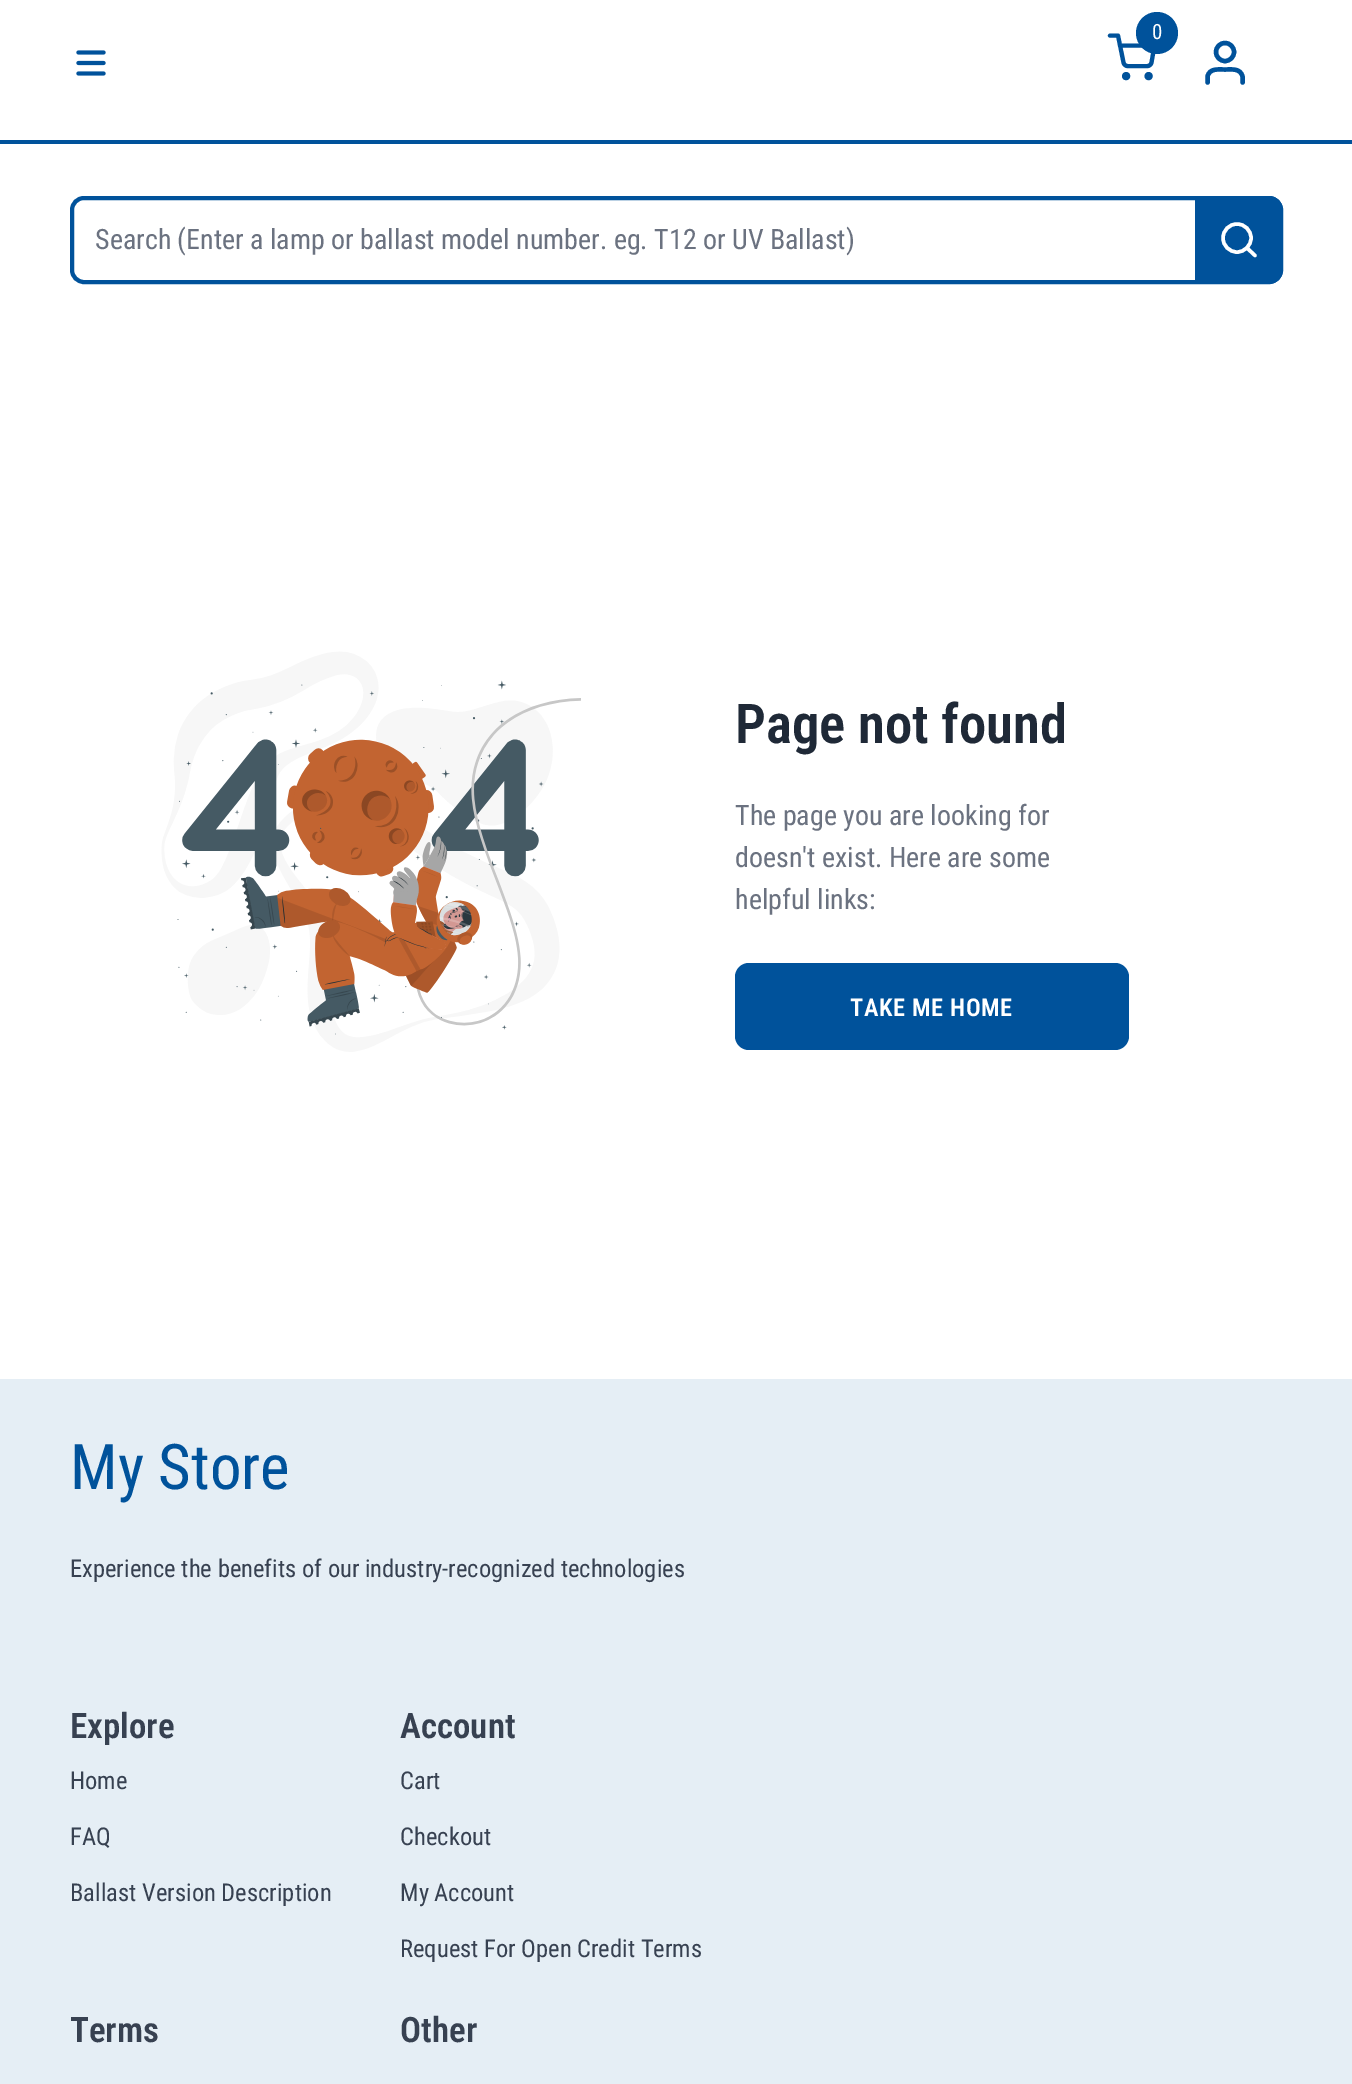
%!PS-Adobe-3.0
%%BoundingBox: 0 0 1352 2084
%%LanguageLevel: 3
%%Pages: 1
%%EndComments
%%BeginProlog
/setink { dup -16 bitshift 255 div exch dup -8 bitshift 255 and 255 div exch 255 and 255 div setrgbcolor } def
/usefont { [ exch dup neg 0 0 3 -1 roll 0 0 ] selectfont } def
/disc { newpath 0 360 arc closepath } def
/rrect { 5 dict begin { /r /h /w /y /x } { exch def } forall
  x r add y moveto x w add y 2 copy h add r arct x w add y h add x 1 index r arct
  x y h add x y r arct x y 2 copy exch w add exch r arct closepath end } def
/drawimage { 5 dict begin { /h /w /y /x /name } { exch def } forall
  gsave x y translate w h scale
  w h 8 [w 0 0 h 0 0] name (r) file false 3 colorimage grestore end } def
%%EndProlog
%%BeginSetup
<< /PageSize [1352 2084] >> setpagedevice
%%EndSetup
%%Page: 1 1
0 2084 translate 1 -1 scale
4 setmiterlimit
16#FFFFFF setink
0 0 1352 2084 rectfill
16#00529B setink
0 140 1352 4 rectfill
4.1 setlinewidth
1 setlinecap
1 setlinejoin
1110 35.5 moveto 1118 35.5 lineto 1123.5 62.5 lineto 1124 64.5 1125.5 66 1127.5 66 curveto 1147.5 66 lineto 1149.5 66 1151 64.5 1151.5 62.5 curveto 1154.5 45.5 lineto 1120 45.5 lineto stroke
1157 33 21 disc fill
/RobotoCondensed-Regular 21 usefont
16#FFFFFF setink
1152 39 moveto (0) show
16#00529B setink
0 setlinecap
0 setlinejoin
1126.1 76.1 2 disc stroke
1148.6 76.1 2 disc stroke
4.4 setlinewidth
1 setlinecap
1 setlinejoin
1242.5 82.5 moveto 1242.5 76.5 lineto 1240.5 68 1231.5 69.5 1225 69.5 curveto 1218.5 69.5 1209.5 68 1207.5 76.5 curveto 1207.5 82.5 lineto stroke
0 setlinecap
0 setlinejoin
1225 52 9 disc stroke
(img1.raw) 76 50 30 26 drawimage
4 setlinewidth
72 198 1209 84 12 rrect stroke
/RobotoCondensed-Regular 28 usefont
16#6B7280 setink
95 249 moveto (Search \(Enter a lamp or ballast model number. eg. T12 or UV Ballast\)) show
16#00529B setink
1195 196 moveto 1269 196 lineto 1276.5 196 1283 202.5 1283 210 curveto 1283 270 lineto 1283 277.5 1276.5 284 1269 284 curveto 1195 284 lineto closepath fill
16#FFFFFF setink
3.5 setlinewidth
1237 238 14 disc stroke
1 setlinecap
1 setlinejoin
1255 255.5 moveto 1247 248 lineto stroke
(img2.raw) 161 651 420 401 drawimage
/RobotoCondensed-SemiBold 54.75 usefont
16#1F2937 setink
735 743 moveto (Page not found) show
/RobotoCondensed-Regular 28 usefont
16#6B7280 setink
[
    [(The page you are looking for) 735 825]
    [(doesn't exist. Here are some) 735 867]
    [(helpful links:) 735 909]
] { aload pop moveto show } forall
16#00529B setink
735 963 394 87 14 rrect fill
/RobotoCondensed-SemiBold 24.5 usefont
16#FFFFFF setink
850 1016 moveto 0.6 0 (TAKE ME HOME) ashow
16#E5EEF5 setink
0 1379 1352 705 rectfill
/RobotoCondensed-Regular 63 usefont
16#00529B setink
70 1489 moveto (My Store) show
/RobotoCondensed-Regular 24.5 usefont
16#374151 setink
70 1577 moveto (Experience the benefits of our industry-recognized technologies) show
/RobotoCondensed-SemiBold 35 usefont
70 1738 moveto (Explore) show
/RobotoCondensed-Regular 24.5 usefont
[
    [(Home) 70 1789]
    [(FAQ) 70 1845]
    [(Ballast Version Description) 70 1901]
] { aload pop moveto show } forall
/RobotoCondensed-SemiBold 35 usefont
400 1738 moveto (Account) show
/RobotoCondensed-Regular 24.5 usefont
[
    [(Cart) 400 1789]
    [(Checkout) 400 1845]
    [(My Account) 400 1901]
    [(Request For Open Credit Terms) 400 1957]
] { aload pop moveto show } forall
/RobotoCondensed-SemiBold 35 usefont
70 2042 moveto (Terms) show
400 2042 moveto (Other) show
showpage
%%EOF
